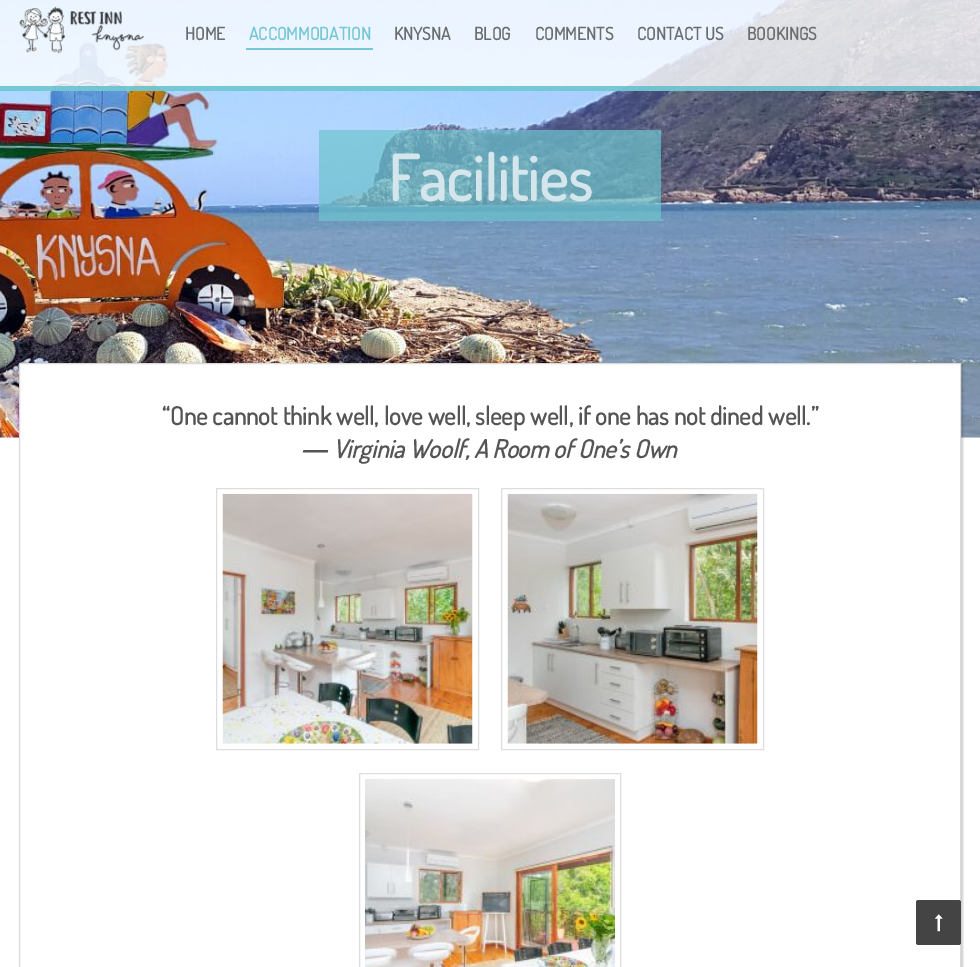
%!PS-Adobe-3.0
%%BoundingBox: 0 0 980 967
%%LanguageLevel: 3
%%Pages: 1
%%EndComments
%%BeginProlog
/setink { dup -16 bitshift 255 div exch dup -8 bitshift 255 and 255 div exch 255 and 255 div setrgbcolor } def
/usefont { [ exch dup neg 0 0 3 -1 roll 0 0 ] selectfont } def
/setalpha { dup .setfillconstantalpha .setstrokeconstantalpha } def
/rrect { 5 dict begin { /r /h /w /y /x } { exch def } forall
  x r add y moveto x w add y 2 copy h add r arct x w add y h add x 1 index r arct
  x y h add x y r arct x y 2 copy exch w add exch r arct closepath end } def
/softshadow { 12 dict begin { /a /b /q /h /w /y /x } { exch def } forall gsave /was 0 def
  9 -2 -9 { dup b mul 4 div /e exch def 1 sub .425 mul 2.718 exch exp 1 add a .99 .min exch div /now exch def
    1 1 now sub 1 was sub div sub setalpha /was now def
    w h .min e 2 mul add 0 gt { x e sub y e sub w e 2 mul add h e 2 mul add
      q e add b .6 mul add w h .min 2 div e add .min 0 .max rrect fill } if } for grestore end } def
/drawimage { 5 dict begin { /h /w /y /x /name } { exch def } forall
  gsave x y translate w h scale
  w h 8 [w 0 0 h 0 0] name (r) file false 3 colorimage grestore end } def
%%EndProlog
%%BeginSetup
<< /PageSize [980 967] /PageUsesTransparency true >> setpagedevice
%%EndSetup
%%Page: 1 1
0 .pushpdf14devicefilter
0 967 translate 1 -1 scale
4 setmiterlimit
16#FFFFFF setink
0 0 980 967 rectfill
16#FAFAFA setink
0 437 980 1 rectfill
(img2.raw) 0 0 980 438 drawimage
0.8 setalpha
16#FFFFFF setink
0 0 980 91 rectfill
16#57BCCA setink
0 86 980 5 rectfill
1 setalpha
(img1.raw) 19 6 125 48 drawimage
/Dosis-Bold 17.5 usefont
16#6A6C6E setink
185 40 moveto (HOME) show
16#75C7D5 setink
249 40 moveto (ACCOMMODATION) show
246 48 127 2 rectfill
16#6A6C6E setink
[
    [(KNYSNA) 394 40]
    [(BLOG) 474 40]
    [(COMMENTS) 535 40]
    [(CONTACT US) 637 40]
    [(BOOKINGS) 747 40]
] { aload pop moveto show } forall
0.7 setalpha
16#6EC4CE setink
319 130 342 91 rectfill
/Dosis-Bold 62.5 usefont
1 setalpha
16#D4E6EB setink
388 201 moveto (Facilities) show
16#000000 setink
20 364 943 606 0 1 0.2 softshadow
16#FFFFFF setink
19.5 363.5 moveto 960.5 363.5 lineto 960.5 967.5 lineto 19.5 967.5 lineto closepath gsave fill grestore
16#DADADA setink
stroke
/Dosis-Bold 25 usefont
16#565555 setink
162 425 moveto (“One cannot think well, love well, sleep well, if one has not dined well.”) show
/LiberationSans-BoldItalic 25 usefont
303 458 moveto (―) show
/Dosis-BoldItalic 25 usefont
333 458 moveto (Virginia Woolf, A Room of One’s Own) show
16#DDDDDD setink
216.5 488.5 262 261 rectstroke
(img3.raw) 222 493 251 251 drawimage
501.5 488.5 262 261 rectstroke
(img4.raw) 507 493 251 251 drawimage
359.5 773.5 261 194 rectstroke
(img5.raw) 365 779 250 188 drawimage
16#444444 setink
916 900 45 45 2.5 rrect fill
(img6.raw) 935 914 8 18 drawimage
.poppdf14devicefilter showpage
%%EOF
